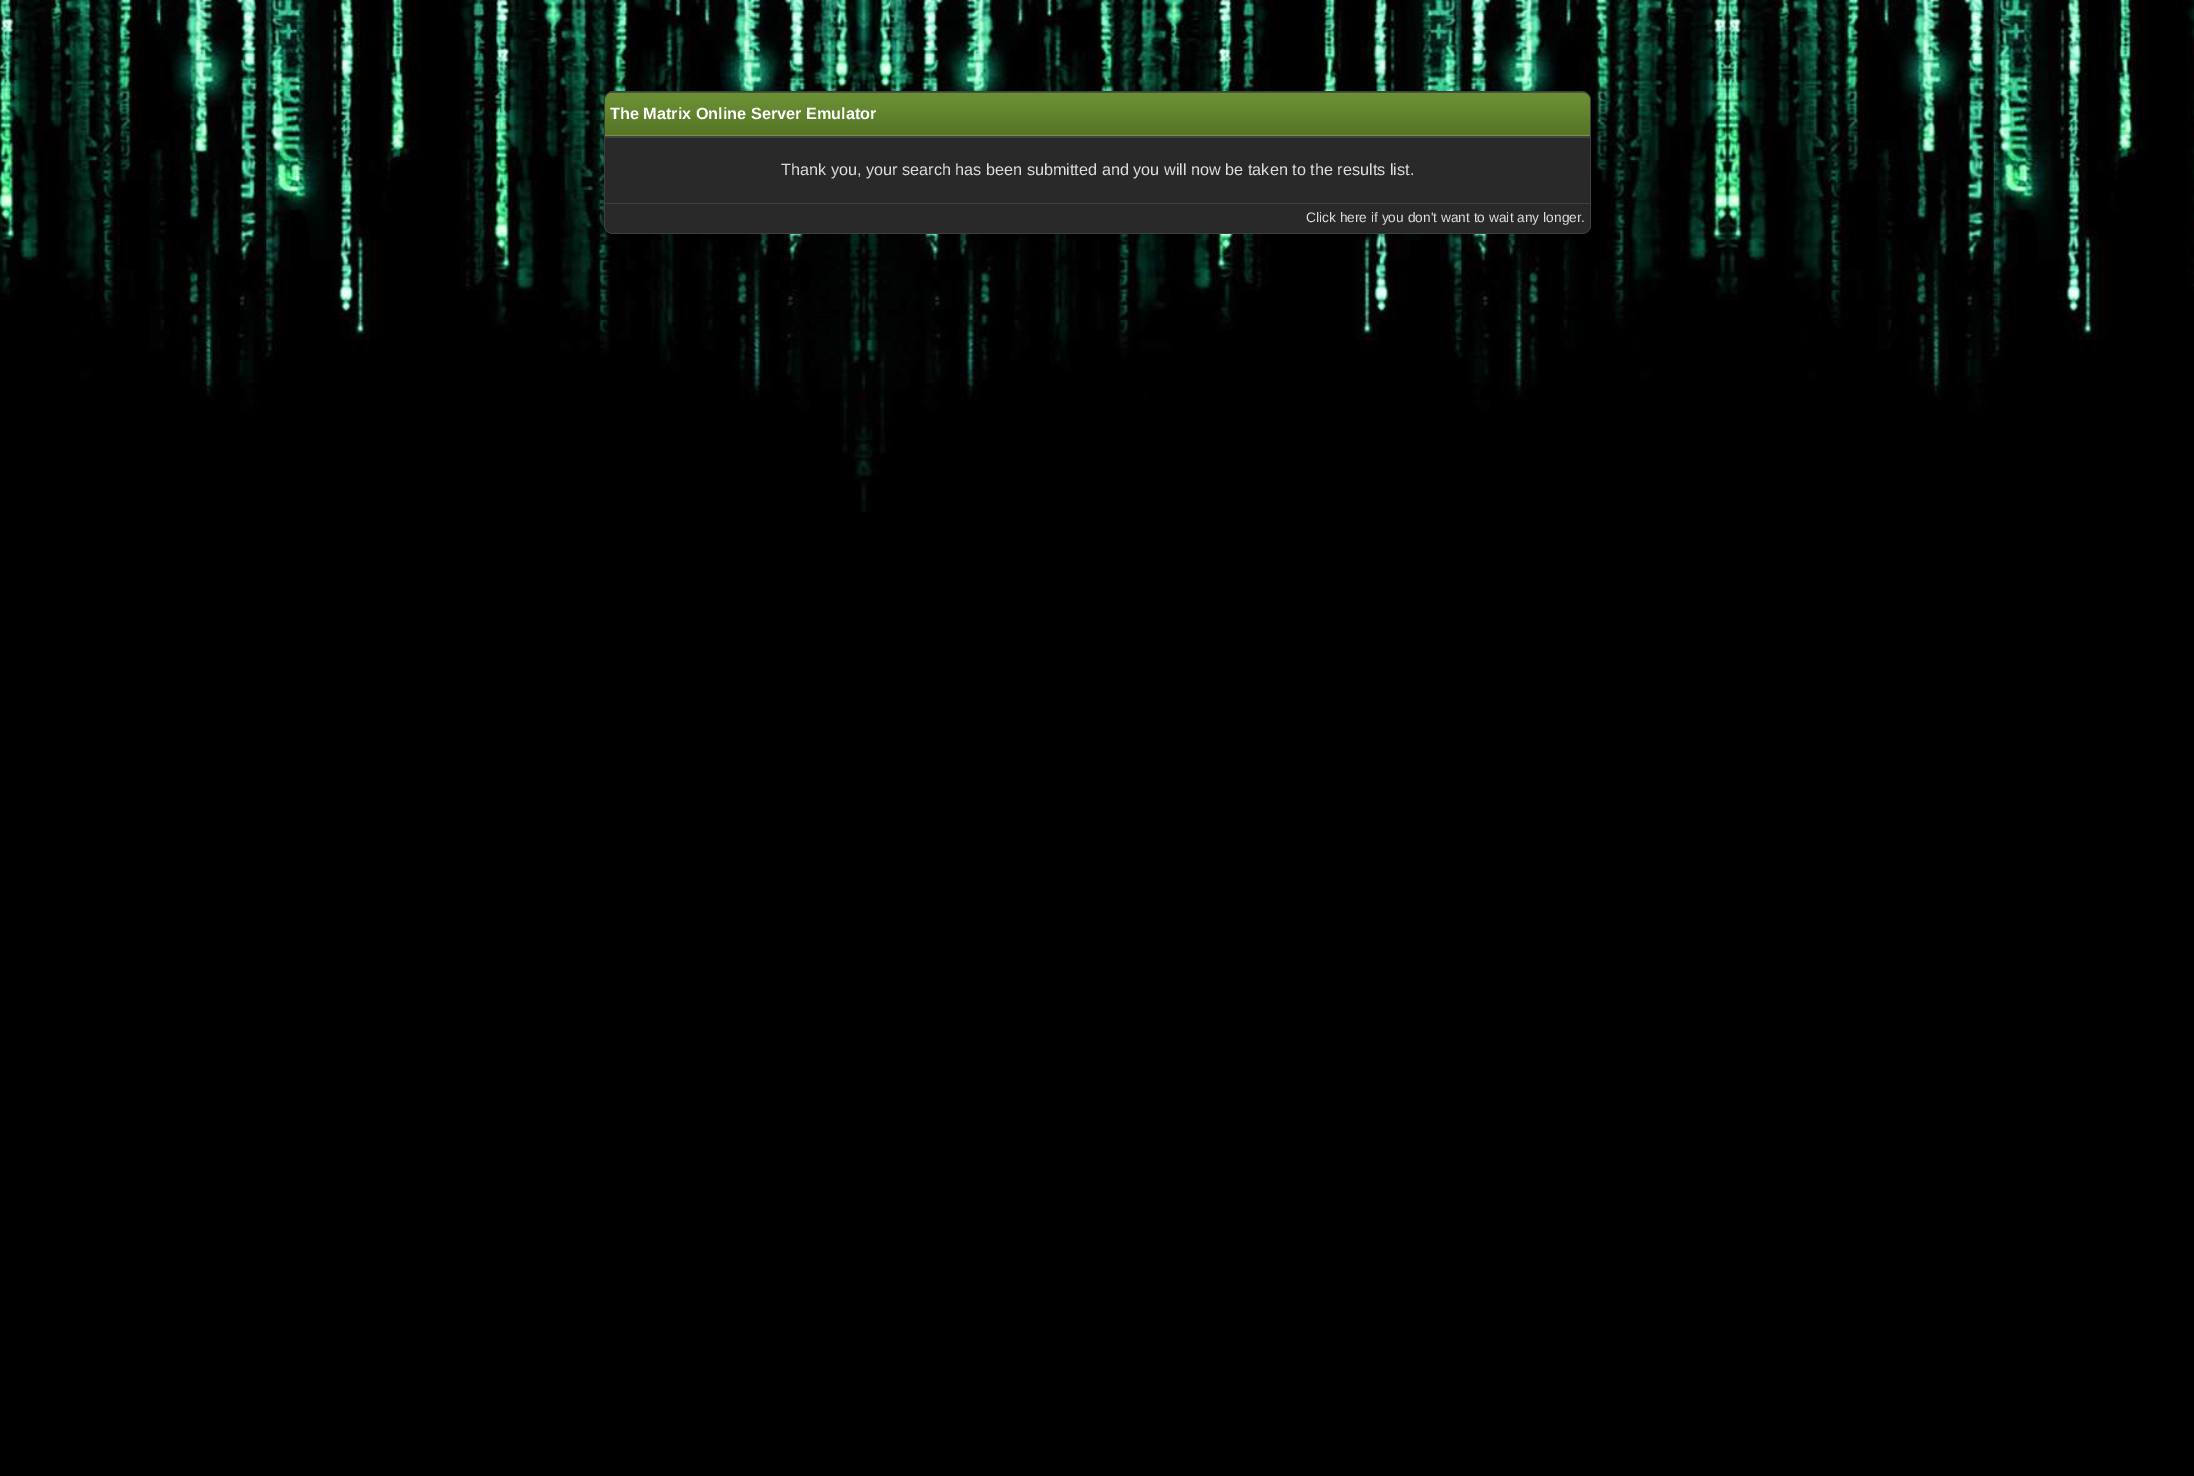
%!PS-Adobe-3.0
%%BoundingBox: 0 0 2194 1476
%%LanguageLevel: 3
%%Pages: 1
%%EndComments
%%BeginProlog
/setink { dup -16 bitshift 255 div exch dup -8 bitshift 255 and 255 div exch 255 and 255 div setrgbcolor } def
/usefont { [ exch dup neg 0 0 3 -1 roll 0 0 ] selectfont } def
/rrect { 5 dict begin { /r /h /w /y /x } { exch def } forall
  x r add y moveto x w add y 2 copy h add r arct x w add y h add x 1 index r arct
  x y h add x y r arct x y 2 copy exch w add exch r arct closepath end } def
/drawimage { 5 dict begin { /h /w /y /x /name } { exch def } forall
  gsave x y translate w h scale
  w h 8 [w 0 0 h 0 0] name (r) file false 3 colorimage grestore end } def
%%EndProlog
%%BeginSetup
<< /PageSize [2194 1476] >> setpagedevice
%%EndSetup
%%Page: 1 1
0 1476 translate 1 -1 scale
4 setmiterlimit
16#000000 setink
0 0 2194 1476 rectfill
(img1.raw) 0 0 2194 513 drawimage
16#3F3F3F setink
604 91 987 143 9 rrect fill
(img2.raw) 605 92 985 45 drawimage
/LiberationSans-Bold 16.25 usefont
16#FFFFFF setink
610 119 moveto (The Matrix Online Server Emulator) show
16#292929 setink
605 138 985 65 rectfill
/LiberationSans-Regular 16.25 usefont
16#DEDEDE setink
781 175 moveto (Thank you, your search has been submitted and you will now be taken to the results list.) show
16#292929 setink
605 204 moveto 1590 204 lineto 1590 225 lineto 1590 229.5 1586.5 233 1582 233 curveto 613 233 lineto 608.5 233 605 229.5 605 225 curveto closepath fill
/LiberationSans-Regular 13.75 usefont
16#DEDEDE setink
1306 222 moveto (Click here if you don't want to wait any longer.) show
showpage
%%EOF
